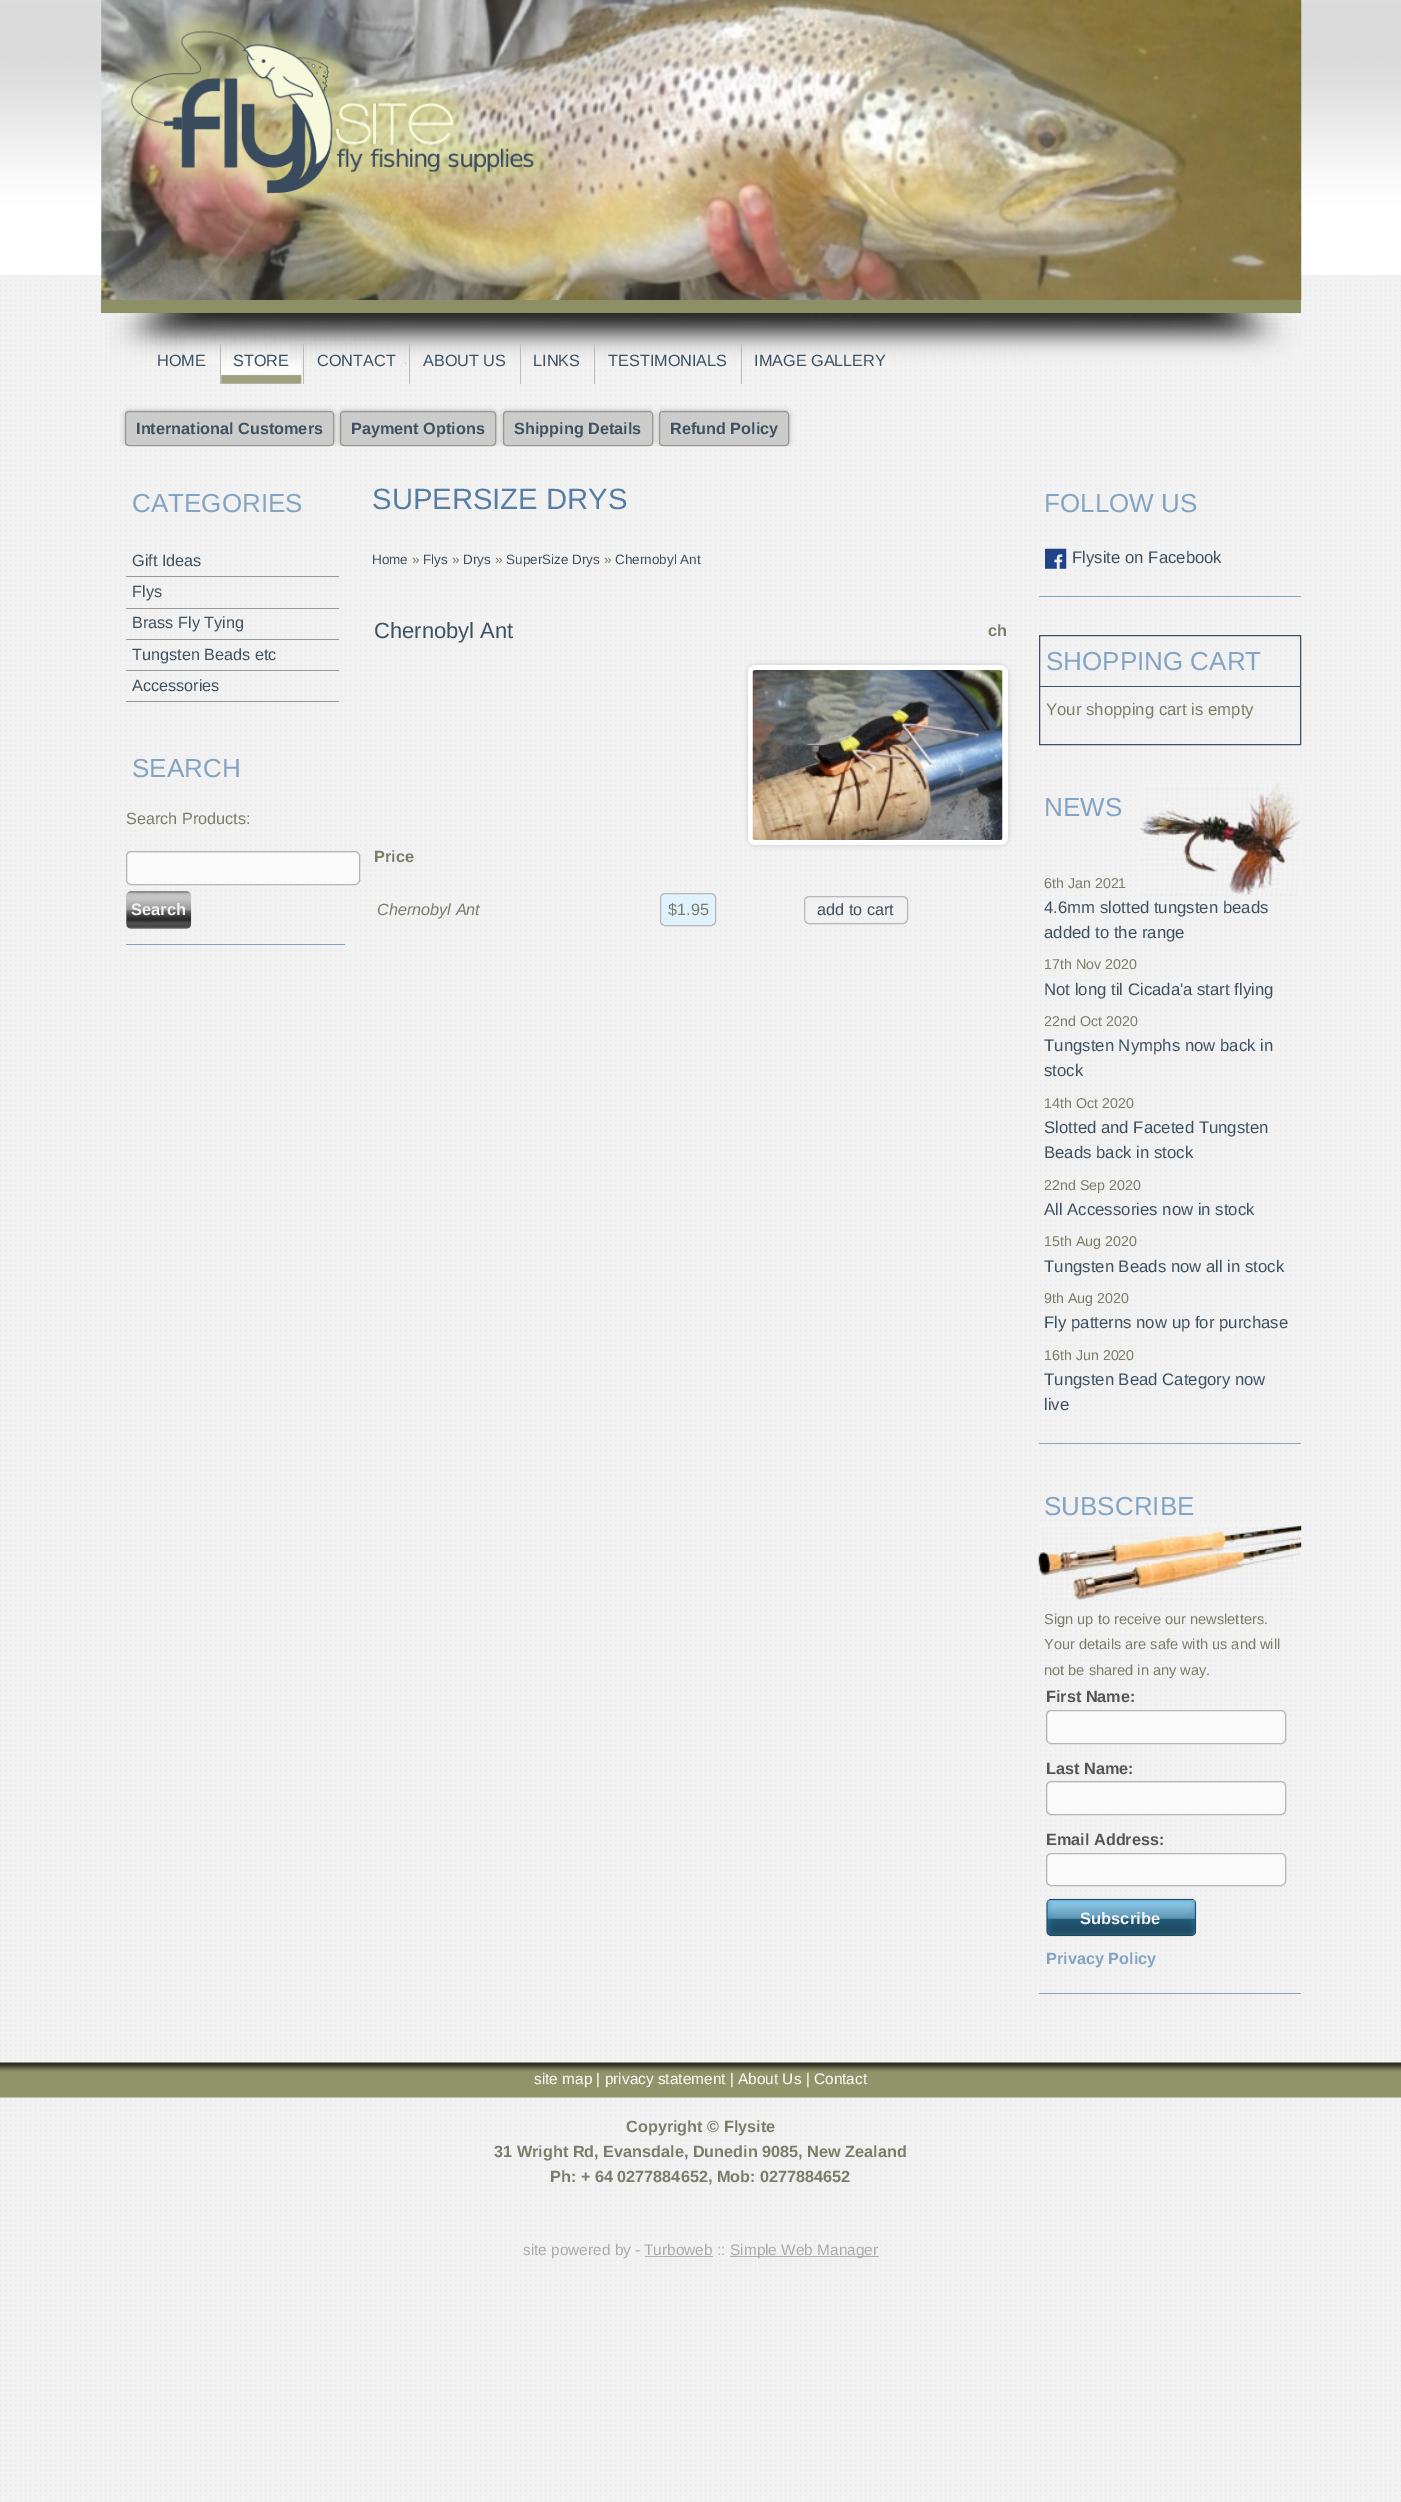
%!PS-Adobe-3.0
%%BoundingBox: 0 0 1401 2502
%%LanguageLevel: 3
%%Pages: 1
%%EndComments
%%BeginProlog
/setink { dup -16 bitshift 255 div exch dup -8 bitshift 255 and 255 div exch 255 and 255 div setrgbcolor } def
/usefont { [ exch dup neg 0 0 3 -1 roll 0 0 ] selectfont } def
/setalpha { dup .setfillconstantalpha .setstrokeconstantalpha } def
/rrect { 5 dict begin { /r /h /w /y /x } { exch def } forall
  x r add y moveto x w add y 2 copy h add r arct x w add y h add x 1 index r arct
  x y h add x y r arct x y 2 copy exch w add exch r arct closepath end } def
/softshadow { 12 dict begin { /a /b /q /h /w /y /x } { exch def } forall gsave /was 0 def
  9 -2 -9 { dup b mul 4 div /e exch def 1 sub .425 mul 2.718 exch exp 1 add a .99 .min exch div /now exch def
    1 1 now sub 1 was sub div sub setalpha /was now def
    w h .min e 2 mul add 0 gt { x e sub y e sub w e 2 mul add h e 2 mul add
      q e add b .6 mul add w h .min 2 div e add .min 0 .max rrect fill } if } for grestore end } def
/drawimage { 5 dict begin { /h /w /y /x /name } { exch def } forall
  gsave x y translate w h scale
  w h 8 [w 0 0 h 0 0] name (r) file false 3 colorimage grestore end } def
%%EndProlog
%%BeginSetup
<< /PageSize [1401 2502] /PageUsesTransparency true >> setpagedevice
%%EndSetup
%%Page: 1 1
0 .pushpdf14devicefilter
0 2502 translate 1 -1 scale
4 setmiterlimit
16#FFFFFF setink
0 0 1401 2502 rectfill
(img1.raw) 0 276 1401 2226 drawimage
(img2.raw) 0 0 1401 276 drawimage
(img3.raw) 101 0 1201 300 drawimage
(img4.raw) 110 8 443 209 drawimage
(img5.raw) 105 313 1196 51 drawimage
16#8D8F65 setink
101 300 1200 13 rectfill
16#BABABA setink
220 344 1 40 rectfill
/LiberationSans-Regular 16.25 usefont
16#3E5161 setink
157 366 moveto (HOME) show
16#BABABA setink
303 344 1 40 rectfill
(img6.raw) 221 359 81 25 drawimage
16#384E61 setink
233 366 moveto (STORE) show
16#BABABA setink
409 344 1 40 rectfill
16#3E5161 setink
317 366 moveto (CONTACT) show
16#BABABA setink
520 344 1 40 rectfill
16#3E5161 setink
423 366 moveto (ABOUT US) show
16#BABABA setink
594 344 1 40 rectfill
16#3E5161 setink
533 366 moveto (LINKS) show
16#BABABA setink
741 344 1 40 rectfill
16#3E5161 setink
608 366 moveto (TESTIMONIALS) show
754 366 moveto (IMAGE GALLERY) show
gsave
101 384 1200 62 rectclip
16#000000 setink
125 411 209 35 4 2.5 0.25 softshadow
grestore
16#CCCCCB setink
125.5 411.5 208 34 3.5 rrect gsave fill grestore
16#999998 setink
stroke
/LiberationSans-Bold 16.25 usefont
16#3E5161 setink
136 434 moveto (International Customers) show
gsave
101 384 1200 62 rectclip
16#000000 setink
340 411 156 35 4 2.5 0.25 softshadow
grestore
16#CCCCCB setink
340.5 411.5 155 34 3.5 rrect gsave fill grestore
16#999998 setink
stroke
16#3E5161 setink
351 434 moveto (Payment Options) show
gsave
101 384 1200 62 rectclip
16#000000 setink
503 411 150 35 4 2.5 0.25 softshadow
grestore
16#CCCCCB setink
503.5 411.5 149 34 3.5 rrect gsave fill grestore
16#999998 setink
stroke
16#3E5161 setink
514 434 moveto (Shipping Details) show
gsave
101 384 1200 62 rectclip
16#000000 setink
659 411 130 35 4 2.5 0.25 softshadow
grestore
16#CCCCCB setink
659.5 411.5 129 34 3.5 rrect gsave fill grestore
16#999998 setink
stroke
16#3E5161 setink
670 434 moveto (Refund Policy) show
/LiberationSans-Regular 26 usefont
16#83A3C3 setink
132 512 moveto (CATEGORIES) show
16#999998 setink
126 576 213 1 rectfill
/LiberationSans-Regular 16.25 usefont
16#3E5161 setink
132 566 moveto (Gift Ideas) show
16#999998 setink
126 608 213 1 rectfill
16#3E5161 setink
132 597 moveto (Flys) show
16#999998 setink
126 639 213 1 rectfill
16#3E5161 setink
132 628 moveto (Brass Fly Tying) show
16#999998 setink
126 670 213 1 rectfill
16#3E5161 setink
132 660 moveto (Tungsten Beads etc) show
16#999998 setink
126 701 213 1 rectfill
16#3E5161 setink
132 691 moveto (Accessories) show
16#83A3C3 setink
126 944 219 1 rectfill
/LiberationSans-Regular 26 usefont
132 777 moveto (SEARCH) show
/LiberationSans-Regular 16.25 usefont
16#7C7C6A setink
126 824 moveto (Search Products:) show
16#FAFAFA setink
128 853 231 31 4 rrect fill
16#B6B6B6 setink
126.5 851.5 233 33 4.5 rrect stroke
16#C0BFBF setink
126 891 65 38 5 rrect fill
(img7.raw) 126 891 66 38 drawimage
/LiberationSans-Bold 16.5 usefont
16#F2F2F2 setink
131 915 moveto (Search) show
/LiberationSans-Regular 29.25 usefont
16#567DA4 setink
372 509 moveto (SUPERSIZE DRYS) show
/LiberationSans-Regular 13.5 usefont
16#3E5161 setink
372 564 moveto (Home) show
16#7C7C6A setink
412 564 moveto (») show
16#3E5161 setink
423 564 moveto (Flys) show
16#7C7C6A setink
452 564 moveto (») show
16#3E5161 setink
463 564 moveto (Drys) show
16#7C7C6A setink
495 564 moveto (») show
16#3E5161 setink
506 564 moveto (SuperSize Drys) show
16#7C7C6A setink
604 564 moveto (») show
16#3E5161 setink
615 564 moveto (Chernobyl Ant) show
/LiberationSans-Regular 22 usefont
374 638 moveto (Chernobyl Ant) show
/LiberationSans-Bold 16.25 usefont
16#7C7C6A setink
988 636 moveto (ch) show
16#000000 setink
748 665 260 180 8 2.5 0.15 softshadow
16#FFFFFF setink
748 665 260 180 8 rrect fill
(img8.raw) 752 670 251 170 drawimage
16#7C7C6A setink
374 862 moveto (Price) show
/LiberationSans-Italic 16.25 usefont
377 915 moveto (Chernobyl Ant) show
16#E1F2FF setink
660.5 893.5 55 32 4.5 rrect gsave fill grestore
16#B6B6B6 setink
stroke
/LiberationSans-Regular 16.25 usefont
16#7C7C6A setink
668 915 moveto ($1.95) show
16#F1F1F1 setink
804.5 896.5 103 27 4.5 rrect gsave fill grestore
16#B6B6B6 setink
stroke
16#3E5161 setink
817 915 moveto (add to cart) show
16#83A3C3 setink
1039 596 262 1 rectfill
/LiberationSans-Regular 26 usefont
1044 512 moveto (FOLLOW US) show
(img9.raw) 1045 548 22 21 drawimage
/LiberationSans-Regular 16.75 usefont
16#3E5161 setink
1072 563 moveto (Flysite on Facebook) show
1039.5 635.5 261 109 rectstroke
1040 686 260 1 rectfill
/LiberationSans-Regular 26 usefont
16#83A3C3 setink
1046 670 moveto (SHOPPING CART) show
/LiberationSans-Regular 16.75 usefont
16#7C7C6A setink
1046 715 moveto (Your shopping cart is empty) show
16#83A3C3 setink
1039 1443 262 1 rectfill
(img10.raw) 1140 783 161 112 drawimage
/LiberationSans-Regular 26 usefont
1044 816 moveto (NEWS) show
/LiberationSans-Regular 14.25 usefont
16#7C7C6A setink
1044 888 moveto (6th Jan 2021) show
/LiberationSans-Regular 16.75 usefont
16#3E5161 setink
1044 913 moveto (4.6mm slotted tungsten beads) show
1044 938 moveto (added to the range) show
/LiberationSans-Regular 14.25 usefont
16#7C7C6A setink
1044 969 moveto (17th Nov 2020) show
/LiberationSans-Regular 16.75 usefont
16#3E5161 setink
1044 995 moveto (Not long til Cicada'a start flying) show
/LiberationSans-Regular 14.25 usefont
16#7C7C6A setink
1044 1026 moveto (22nd Oct 2020) show
/LiberationSans-Regular 16.75 usefont
16#3E5161 setink
1044 1051 moveto (Tungsten Nymphs now back in) show
1044 1076 moveto (stock) show
/LiberationSans-Regular 14.25 usefont
16#7C7C6A setink
1044 1108 moveto (14th Oct 2020) show
/LiberationSans-Regular 16.75 usefont
16#3E5161 setink
1044 1133 moveto (Slotted and Faceted Tungsten) show
1044 1158 moveto (Beads back in stock) show
/LiberationSans-Regular 14.25 usefont
16#7C7C6A setink
1044 1190 moveto (22nd Sep 2020) show
/LiberationSans-Regular 16.75 usefont
16#3E5161 setink
1044 1215 moveto (All Accessories now in stock) show
/LiberationSans-Regular 14.25 usefont
16#7C7C6A setink
1044 1246 moveto (15th Aug 2020) show
/LiberationSans-Regular 16.75 usefont
16#3E5161 setink
1044 1272 moveto (Tungsten Beads now all in stock) show
/LiberationSans-Regular 14.25 usefont
16#7C7C6A setink
1044 1303 moveto (9th Aug 2020) show
/LiberationSans-Regular 16.75 usefont
16#3E5161 setink
1044 1328 moveto (Fly patterns now up for purchase) show
/LiberationSans-Regular 14.25 usefont
16#7C7C6A setink
1044 1360 moveto (16th Jun 2020) show
/LiberationSans-Regular 16.75 usefont
16#3E5161 setink
1044 1385 moveto (Tungsten Bead Category now) show
1044 1410 moveto (live) show
16#83A3C3 setink
1039 1993 262 1 rectfill
(img11.raw) 1038 1525 264 75 drawimage
/LiberationSans-Regular 26 usefont
1044 1515 moveto (SUBSCRIBE) show
/LiberationSans-Regular 14.6 usefont
16#7C7C6A setink
[
    [(Sign up to receive our newsletters.) 1044 1624]
    [(Your details are safe with us and will) 1044 1649]
    [(not be shared in any way.) 1044 1675]
] { aload pop moveto show } forall
/LiberationSans-Bold 16.25 usefont
16#555554 setink
1046 1702 moveto (First Name:) show
16#FAFAFA setink
1048 1711 237 32 4 rrect fill
16#B6B6B6 setink
1046.5 1710.5 239 33 4.5 rrect stroke
16#555554 setink
1046 1774 moveto (Last Name:) show
16#FAFAFA setink
1048 1783 237 31 4 rrect fill
16#B6B6B6 setink
1046.5 1781.5 239 33 4.5 rrect stroke
16#555554 setink
1046 1845 moveto (Email Address:) show
16#FAFAFA setink
1048 1854 237 31 4 rrect fill
16#B6B6B6 setink
1046.5 1853.5 239 32 4.5 rrect stroke
(img12.raw) 1046 1898 151 39 drawimage
/LiberationSans-Bold 16.5 usefont
16#F2F2F2 setink
1080 1924 moveto (Subscribe) show
/LiberationSans-Bold 16.25 usefont
16#83A3C3 setink
1046 1964 moveto (Privacy Policy) show
(img13.raw) 0 2062 1401 36 drawimage
/LiberationSans-Regular 15.4 usefont
16#FFFFFF setink
534 2084 moveto (site map | privacy statement | About Us | Contact) show
/LiberationSans-Bold 16.25 usefont
16#7C7C6A setink
[
    [(Copyright © Flysite) 626 2132]
    [(31 Wright Rd, Evansdale, Dunedin 9085, New Zealand) 494 2157]
    [(Ph: + 64 0277884652, Mob: 0277884652) 550 2182]
] { aload pop moveto show } forall
/LiberationSans-Regular 15.4 usefont
16#AAAAAA setink
523 2255 moveto (site powered by -) show
644 2255 moveto (Turboweb) show
16#AEAEAE setink
645 2256 68 1 rectfill
16#AAAAAA setink
717 2255 moveto (::) show
16#AEAEAE setink
730 2256 149 1 rectfill
16#AAAAAA setink
730 2255 moveto (Simple Web Manager) show
.poppdf14devicefilter showpage
%%EOF
